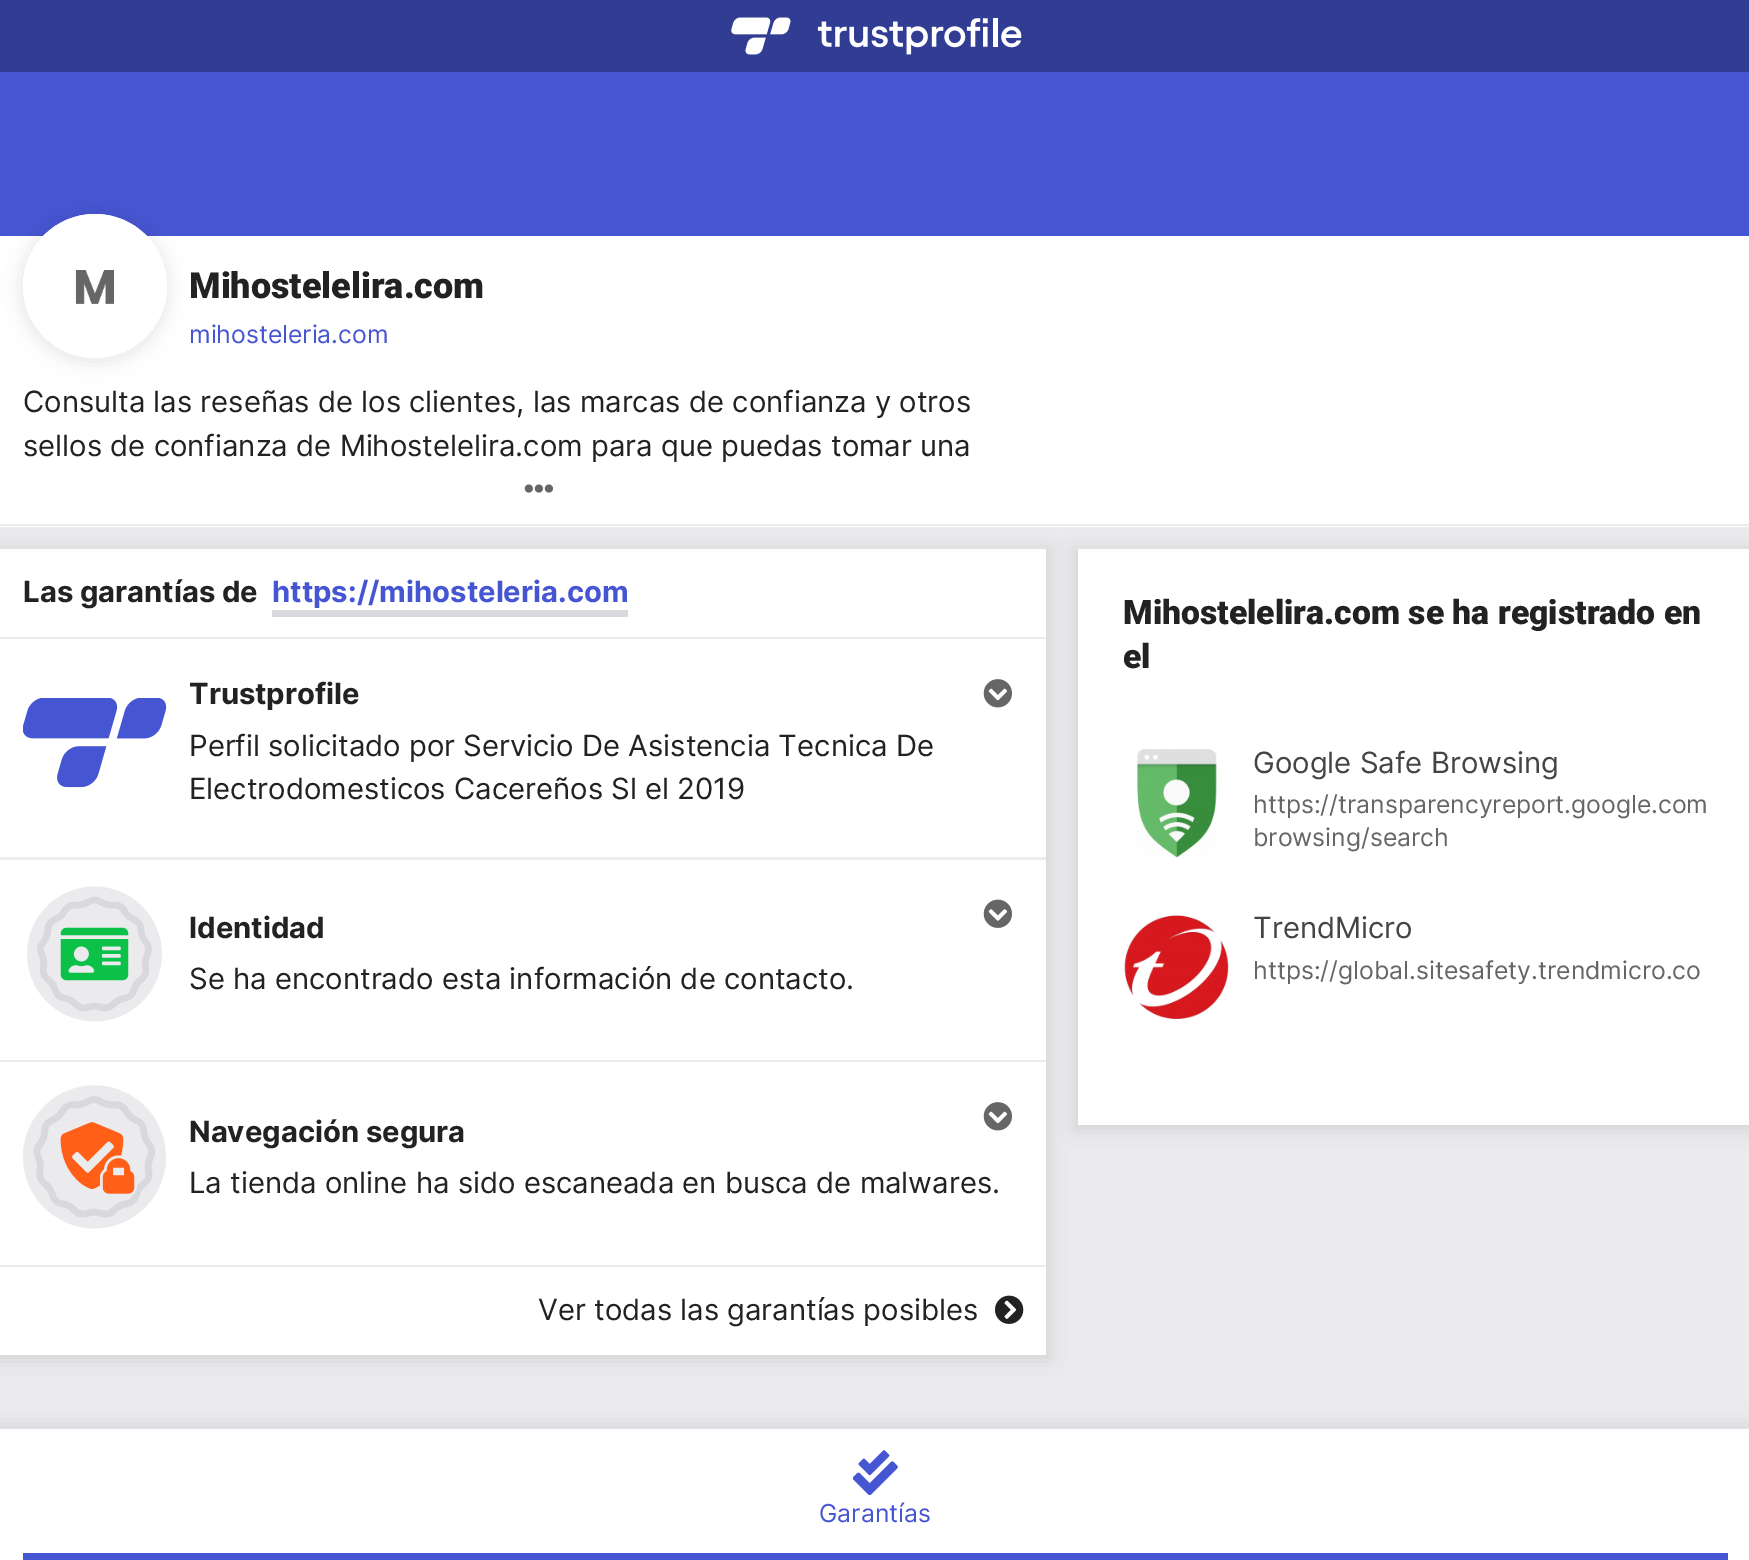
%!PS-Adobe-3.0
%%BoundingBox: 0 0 1749 1560
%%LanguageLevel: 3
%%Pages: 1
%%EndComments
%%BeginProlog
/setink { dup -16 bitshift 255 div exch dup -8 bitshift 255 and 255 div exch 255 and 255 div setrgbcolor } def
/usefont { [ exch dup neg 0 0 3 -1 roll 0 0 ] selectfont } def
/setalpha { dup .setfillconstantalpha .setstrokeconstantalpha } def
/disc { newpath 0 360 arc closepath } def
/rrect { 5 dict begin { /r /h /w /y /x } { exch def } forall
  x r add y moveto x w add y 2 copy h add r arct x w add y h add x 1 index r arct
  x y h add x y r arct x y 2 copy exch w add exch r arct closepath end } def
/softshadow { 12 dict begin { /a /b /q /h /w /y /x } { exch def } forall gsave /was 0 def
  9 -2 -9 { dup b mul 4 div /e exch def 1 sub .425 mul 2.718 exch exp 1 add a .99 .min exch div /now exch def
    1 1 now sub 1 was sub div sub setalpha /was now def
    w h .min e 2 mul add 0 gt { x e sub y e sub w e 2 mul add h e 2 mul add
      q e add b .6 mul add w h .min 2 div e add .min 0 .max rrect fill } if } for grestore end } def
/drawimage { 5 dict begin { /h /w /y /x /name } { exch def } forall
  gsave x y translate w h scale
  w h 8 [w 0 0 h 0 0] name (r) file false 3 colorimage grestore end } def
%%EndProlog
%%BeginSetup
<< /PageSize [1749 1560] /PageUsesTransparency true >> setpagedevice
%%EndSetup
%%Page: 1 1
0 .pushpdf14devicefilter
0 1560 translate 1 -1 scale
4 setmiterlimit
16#EBEBED setink
0 0 1749 1560 rectfill
16#313C93 setink
0 0 1749 72 rectfill
(img1.raw) 731 17 291 38 drawimage
16#4655D2 setink
0 72 1749 164 rectfill
gsave
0 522 moveto 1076 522 lineto 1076 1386 lineto 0 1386 lineto closepath 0 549 moveto 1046 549 lineto 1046 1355 lineto 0 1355 lineto closepath eoclip newpath
16#000000 setink
-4 547 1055 814 0 8 0.07 softshadow
grestore
16#000000 setink
1073 547 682 585 0 8 0.07 softshadow
16#FFFFFF setink
0 236 1749 291 rectfill
16#EBEBED setink
0 524 1749 2 rectfill
16#000000 setink
18 212 153 153 76.5 8 0.07 softshadow
16#FFFFFF setink
95 286 72 disc fill
(img2.raw) 75 270 39 34 drawimage
5 setlinewidth
95 286 69.5 disc stroke
/Roboto-Black 36 usefont
16#222222 setink
189 298 moveto (Mihostelelira.com) show
/Inter-Regular 24.75 usefont
16#4655D2 setink
189 343 moveto (mihosteleria.com) show
/Inter-Regular 29.25 usefont
16#222222 setink
23 412 moveto (Consulta las reseñas de los clientes, las marcas de confianza y otros) show
23 456 moveto (sellos de confianza de Mihostelelira.com para que puedas tomar una) show
(img3.raw) 524 484 29 9 drawimage
16#FFFFFF setink
0 549 1046 88 rectfill
/Inter-Bold 29.25 usefont
16#222222 setink
23 602 moveto (Las garantías de) show
16#4655D2 setink
272 602 moveto (https://mihosteleria.com) show
16#D8D8DE setink
272 610 356 7 rectfill
16#FFFFFF setink
0 639 1046 218 rectfill
(img4.raw) 23 698 144 90 drawimage
16#222222 setink
189 704 moveto (Trustprofile) show
/Inter-Regular 29.25 usefont
189 756 moveto (Perfil solicitado por Servicio De Asistencia Tecnica De) show
189 799 moveto (Electrodomesticos Cacereños Sl el 2019) show
(img5.raw) 983 679 29 29 drawimage
16#FFFFFF setink
0 860 1046 200 rectfill
(img6.raw) 27 886 135 136 drawimage
/Inter-Bold 29.25 usefont
16#222222 setink
189 938 moveto (Identidad) show
/Inter-Regular 29.25 usefont
189 989 moveto (Se ha encontrado esta información de contacto.) show
(img7.raw) 983 899 29 29 drawimage
16#FFFFFF setink
0 1062 1046 203 rectfill
(img8.raw) 23 1085 143 144 drawimage
(img5.raw) 983 1102 29 29 drawimage
/Inter-Bold 29.25 usefont
16#222222 setink
189 1142 moveto (Navegación segura) show
/Inter-Regular 29.25 usefont
189 1193 moveto (La tienda online ha sido escaneada en busca de malwares.) show
16#FFFFFF setink
0 1267 1046 88 rectfill
16#222222 setink
538 1320 moveto (Ver todas las garantías posibles) show
(img9.raw) 995 1295 29 29 drawimage
16#FFFFFF setink
1078 549 671 576 rectfill
/Roboto-Black 33.75 usefont
16#222222 setink
1123 624 moveto (Mihostelelira.com se ha registrado en) show
1123 668 moveto (el) show
(img10.raw) 1137 749 80 109 drawimage
/Inter-Regular 29.25 usefont
16#444444 setink
1253 773 moveto (Google Safe Browsing) show
gsave
1123 704 583 376 rectclip
/Inter-Regular 24.75 usefont
16#666666 setink
1253 813 moveto (https://transparencyreport.google.com) show
grestore
/Inter-Regular 24.75 usefont
16#666666 setink
1253 846 moveto (browsing/search) show
(img11.raw) 1124 915 105 104 drawimage
/Inter-Regular 29.25 usefont
16#444444 setink
1253 938 moveto (TrendMicro) show
/Inter-Regular 24.75 usefont
16#666666 setink
1253 979 moveto (https://global.sitesafety.trendmicro.co) show
16#000000 setink
-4 1424 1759 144 0 8 0.07 softshadow
[
    [0 1429 1749 131 16#FFFFFF]
    [0 1427 1749 2 16#E2E2E6]
    [23 1553 1705 7 16#4655D2]
] { aload pop setink rectfill } forall
(img12.raw) 852 1450 46 46 drawimage
819 1522 moveto (Garantías) show
.poppdf14devicefilter showpage
%%EOF
